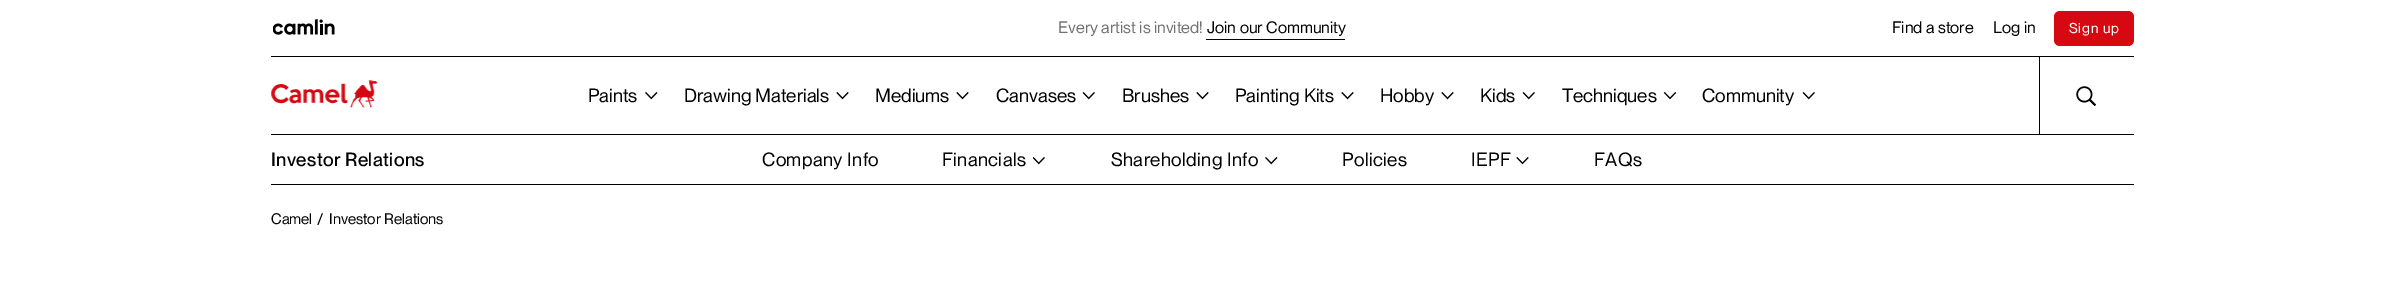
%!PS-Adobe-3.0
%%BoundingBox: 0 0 2403 305
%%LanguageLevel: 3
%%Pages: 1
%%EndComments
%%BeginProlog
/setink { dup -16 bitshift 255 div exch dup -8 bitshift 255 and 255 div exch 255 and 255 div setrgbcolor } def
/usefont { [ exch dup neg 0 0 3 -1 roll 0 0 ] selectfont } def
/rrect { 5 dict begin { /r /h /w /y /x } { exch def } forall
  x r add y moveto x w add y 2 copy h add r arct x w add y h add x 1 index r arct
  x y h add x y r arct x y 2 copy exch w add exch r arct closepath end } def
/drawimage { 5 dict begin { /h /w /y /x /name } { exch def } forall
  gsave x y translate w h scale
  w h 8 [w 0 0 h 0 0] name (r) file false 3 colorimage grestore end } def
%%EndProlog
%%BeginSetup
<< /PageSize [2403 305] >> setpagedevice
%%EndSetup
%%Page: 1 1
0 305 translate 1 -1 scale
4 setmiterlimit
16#FFFFFF setink
0 0 2403 305 rectfill
(img1.raw) 273 19 62 16 drawimage
/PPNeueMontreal-Regular 16.25 usefont
16#727272 setink
1058 33 moveto (Every artist is invited!) show
16#000000 setink
1207 33 moveto (Join our Community) show
1206 39 139 1 rectfill
1892 33 moveto (Find a store) show
1993 33 moveto (Log in) show
16#D60812 setink
2054 11 80 35 6 rrect fill
/PPNeueMontreal-Regular 14 usefont
16#FFFFFF setink
2069 33 moveto 0.75 0 (Sign up) ashow
16#000000 setink
271 56 1863 1 rectfill
(img2.raw) 271 80 107 28 drawimage
/PPNeueMontreal-Regular 18.75 usefont
588 102 moveto (Paints) show
(img3.raw) 645 92 13 8 drawimage
684 102 moveto (Drawing Materials) show
(img4.raw) 836 92 13 8 drawimage
875 102 moveto (Mediums) show
(img4.raw) 956 92 13 8 drawimage
996 102 moveto (Canvases) show
(img5.raw) 1082 92 13 8 drawimage
1122 102 moveto (Brushes) show
(img4.raw) 1196 92 13 8 drawimage
1235 102 moveto (Painting Kits) show
(img4.raw) 1341 92 13 8 drawimage
1380 102 moveto (Hobby) show
(img4.raw) 1441 92 13 8 drawimage
1480 102 moveto (Kids) show
(img5.raw) 1522 92 13 8 drawimage
1562 102 moveto (Techniques) show
(img6.raw) 1663 92 14 8 drawimage
1702 102 moveto (Community) show
(img5.raw) 1802 92 13 8 drawimage
271 134 1863 1 rectfill
2039 56 1 79 rectfill
(img7.raw) 2076 86 20 20 drawimage
/PPNeueMontreal-Medium 18.75 usefont
271 166 moveto 0.4 0 (Investor Relations) ashow
/PPNeueMontreal-Regular 18.75 usefont
762 166 moveto 0.4 0 (Company Info) ashow
942 166 moveto 0.4 0 (Financials) ashow
(img8.raw) 1033 157 12 8 drawimage
1111 166 moveto 0.4 0 (Shareholding Info) ashow
(img3.raw) 1265 157 13 8 drawimage
1342 166 moveto 0.4 0 (Policies) ashow
1471 166 moveto 0.4 0 (IEPF) ashow
(img4.raw) 1516 157 13 8 drawimage
1594 166 moveto 0.4 0 (FAQs) ashow
271 184 1863 1 rectfill
/PPNeueMontreal-Regular 15 usefont
271 224 moveto (Camel) show
/PPNeueMontreal-Regular 16.25 usefont
317 225 moveto 1 0 (/) ashow
/PPNeueMontreal-Regular 15 usefont
329 224 moveto (Investor Relations) show
showpage
%%EOF
